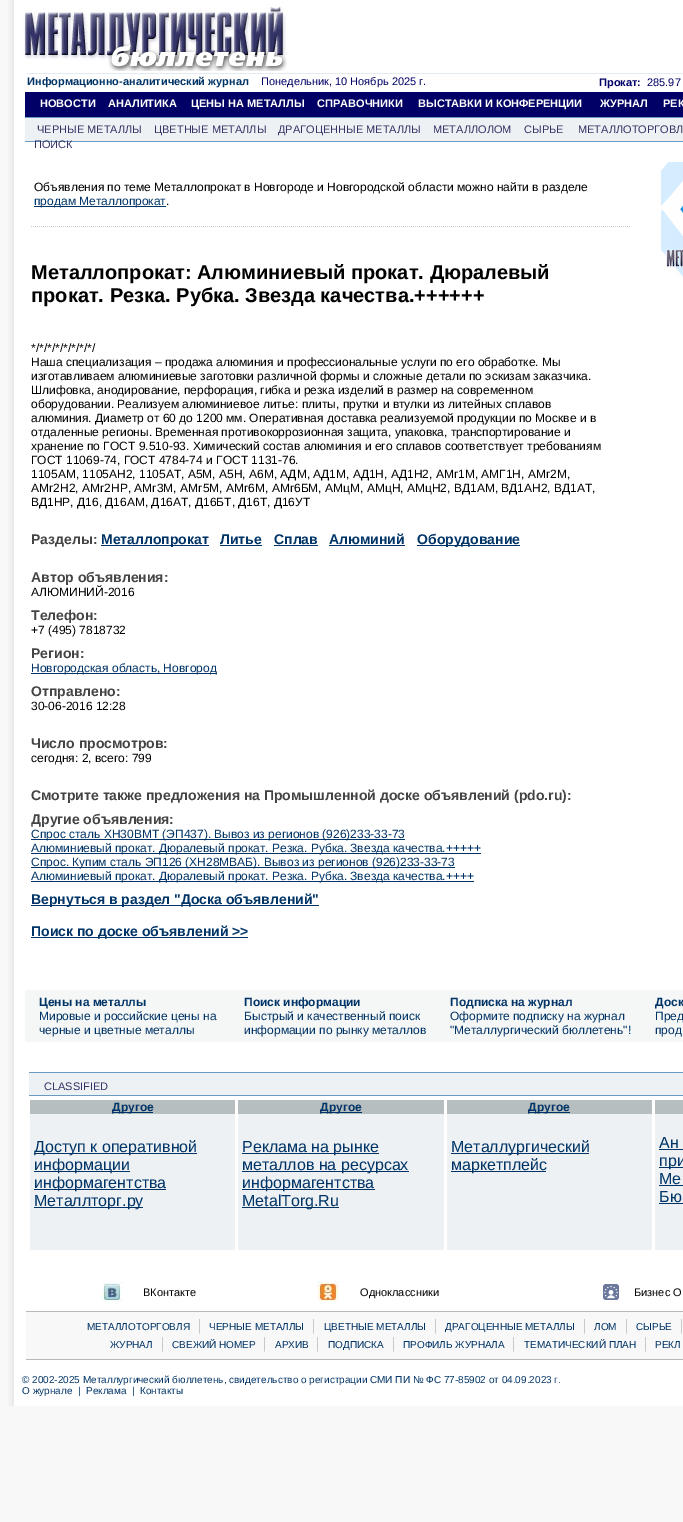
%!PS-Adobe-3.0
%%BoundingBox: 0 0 683 1522
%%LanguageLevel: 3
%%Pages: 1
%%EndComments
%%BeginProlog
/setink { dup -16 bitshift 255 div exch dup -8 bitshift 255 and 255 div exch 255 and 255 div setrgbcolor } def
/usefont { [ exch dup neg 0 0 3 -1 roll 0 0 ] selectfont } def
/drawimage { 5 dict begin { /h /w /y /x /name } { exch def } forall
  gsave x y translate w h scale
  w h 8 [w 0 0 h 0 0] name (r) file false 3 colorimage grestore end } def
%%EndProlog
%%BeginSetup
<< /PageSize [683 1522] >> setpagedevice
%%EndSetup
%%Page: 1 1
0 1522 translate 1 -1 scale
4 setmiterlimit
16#F8F8F8 setink
0 0 683 1522 rectfill
16#FFFFFF setink
14 0 669 1406 rectfill
(img1.raw) 8 0 6 1406 drawimage
(img2.raw) 23 7 264 64 drawimage
16#E4EBF0 setink
27 73 656 1 rectfill
/LiberationSans-Bold 11 usefont
16#003366 setink
27 85 moveto (Информационно-аналитический журнал) show
/LiberationSans-Regular 11 usefont
16#000066 setink
261 85 moveto (Понедельник, 10 Ноябрь 2025 г.) show
/LiberationSans-Bold 11 usefont
599 86 moveto (Прокат:) show
/LiberationSans-Regular 11 usefont
647 86 moveto (285.97) show
25 92 658 25 rectfill
/LiberationSans-Bold 11 usefont
16#FFFFFF setink
[
    [(НОВОСТИ) 40 107]
    [(АНАЛИТИКА) 108 107]
    [(ЦЕНЫ НА МЕТАЛЛЫ) 191 107]
    [(СПРАВОЧНИКИ) 317 107]
    [(ВЫСТАВКИ И КОНФЕРЕНЦИИ) 418 107]
    [(ЖУРНАЛ) 600 107]
    [(РЕК) 663 107]
] { aload pop moveto show } forall
[
    [25 118 658 23 16#EDF1F3]
    [25 117 658 1 16#6B9BC1]
    [25 141 658 1 16#6B9BC1]
] { aload pop setink rectfill } forall
/LiberationSans-Regular 11 usefont
16#333366 setink
[
    [(ЧЕРНЫЕ МЕТАЛЛЫ) 37 133]
    [(ЦВЕТНЫЕ МЕТАЛЛЫ) 154 133]
    [(ДРАГОЦЕННЫЕ МЕТАЛЛЫ) 278 133]
    [(МЕТАЛЛОЛОМ) 433 133]
    [(СЫРЬЕ) 524 133]
    [(МЕТАЛЛОТОРГОВЛ) 578 133]
    [(ПОИСК) 34 148]
] { aload pop moveto show } forall
/LiberationSans-Regular 12 usefont
16#000000 setink
34 191 moveto (Объявления по теме Металлопрокат в Новгороде и Новгородской области можно найти в разделе) show
16#003366 setink
34 206 132 1 rectfill
34 205 moveto (продам Металлопрокат) show
16#000000 setink
166 205 moveto (.) show
(img3.raw) 31 226 599 1 drawimage
/LiberationSans-Bold 20 usefont
31 279 moveto (Металлопрокат: Алюминиевый прокат. Дюралевый) show
31 302 moveto (прокат. Резка. Рубка. Звезда качества.++++++) show
/LiberationSans-Regular 12 usefont
[
    [(*/*/*/*/*/*/*/*/) 31 352]
    [(Наша специализация – продажа алюминия и профессиональные услуги по его обработке. Мы) 31 366]
    [(изготавливаем алюминиевые заготовки различной формы и сложные детали по эскизам заказчика.) 31 380]
    [(Шлифовка, анодирование, перфорация, гибка и резка изделий в размер на современном) 31 394]
    [(оборудовании. Реализуем алюминиевое литье: плиты, прутки и втулки из литейных сплавов) 31 408]
    [(алюминия. Диаметр от 60 до 1200 мм. Оперативная доставка реализуемой продукции по Москве и в) 31 422]
    [(отдаленные регионы. Временная противокоррозионная защита, упаковка, транспортирование и) 31 436]
    [(хранение по ГОСТ 9.510-93. Химический состав алюминия и его сплавов соответствует требованиям) 31 450]
    [(ГОСТ 11069-74, ГОСТ 4784-74 и ГОСТ 1131-76.) 31 464]
    [(1105АМ, 1105АН2, 1105АТ, А5М, А5Н, А6М, АДМ, АД1М, АД1Н, АД1Н2, АМг1М, АМГ1Н, АМг2М,) 31 478]
    [(АМг2Н2, АМг2НР, АМг3М, АМг5М, АМг6М, АМг6БМ, АМцМ, АМцН, АМцН2, ВД1АМ, ВД1АН2, ВД1АТ,) 31 492]
    [(ВД1НР, Д16, Д16АМ, Д16АТ, Д16БТ, Д16Т, Д16УТ) 31 506]
] { aload pop moveto show } forall
/LiberationSans-Bold 14 usefont
16#444444 setink
31 544 moveto (Разделы:) show
16#003366 setink
101 545 108 1 rectfill
101 544 moveto (Металлопрокат) show
220 544 moveto (Литье) show
220 545 42 1 rectfill
274 544 moveto (Сплав) show
274 545 44 1 rectfill
329 544 moveto (Алюминий) show
329 545 76 1 rectfill
417 545 103 1 rectfill
417 544 moveto (Оборудование) show
16#444444 setink
31 582 moveto (Автор объявления:) show
/LiberationSans-Regular 12 usefont
16#000000 setink
31 596 moveto (АЛЮМИНИЙ-2016) show
/LiberationSans-Bold 14 usefont
16#444444 setink
31 620 moveto (Телефон:) show
/LiberationSans-Regular 12 usefont
16#000000 setink
31 634 moveto (+7 \(495\) 7818732) show
/LiberationSans-Bold 14 usefont
16#444444 setink
31 658 moveto (Регион:) show
16#003366 setink
31 673 186 1 rectfill
/LiberationSans-Regular 12 usefont
31 672 moveto (Новгородская область, Новгород) show
/LiberationSans-Bold 14 usefont
16#444444 setink
31 696 moveto (Отправлено:) show
/LiberationSans-Regular 12 usefont
16#000000 setink
31 710 moveto (30-06-2016 12:28) show
/LiberationSans-Bold 14 usefont
16#444444 setink
31 748 moveto (Число просмотров:) show
/LiberationSans-Regular 12 usefont
16#000000 setink
31 762 moveto (сегодня: 2, всего: 799) show
/LiberationSans-Bold 14 usefont
16#444444 setink
31 800 moveto (Смотрите также предложения на Промышленной доске объявлений \(pdo.ru\):) show
31 824 moveto (Другие объявления:) show
16#003366 setink
31 839 374 1 rectfill
/LiberationSans-Regular 12 usefont
31 838 moveto (Спрос сталь ХН30ВМТ \(ЭП437\). Вывоз из регионов \(926\)233-33-73) show
31 853 450 1 rectfill
31 852 moveto (Алюминиевый прокат. Дюралевый прокат. Резка. Рубка. Звезда качества.+++++) show
31 867 424 1 rectfill
31 866 moveto (Спрос. Купим сталь ЭП126 \(ХН28МВАБ\). Вывоз из регионов \(926\)233-33-73) show
31 881 443 1 rectfill
31 880 moveto (Алюминиевый прокат. Дюралевый прокат. Резка. Рубка. Звезда качества.++++) show
31 905 288 1 rectfill
/LiberationSans-Bold 14 usefont
31 904 moveto (Вернуться в раздел "Доска объявлений") show
31 937 217 1 rectfill
31 936 moveto (Поиск по доске объявлений >>) show
(img4.raw) 661 162 22 115 drawimage
16#F5F6F6 setink
25 990 658 52 rectfill
/LiberationSans-Bold 12 usefont
16#003366 setink
39 1006 moveto (Цены на металлы) show
/LiberationSans-Regular 12 usefont
39 1020 moveto (Мировые и российские цены на) show
39 1034 moveto (черные и цветные металлы) show
/LiberationSans-Bold 12 usefont
244 1006 moveto (Поиск информации) show
/LiberationSans-Regular 12 usefont
244 1020 moveto (Быстрый и качественный поиск) show
244 1034 moveto (информации по рынку металлов) show
/LiberationSans-Bold 12 usefont
450 1006 moveto (Подписка на журнал) show
/LiberationSans-Regular 12 usefont
450 1020 moveto (Оформите подписку на журнал) show
450 1034 moveto ("Металлургический бюллетень"!) show
/LiberationSans-Bold 12 usefont
655 1006 moveto (Доск) show
/LiberationSans-Regular 12 usefont
655 1020 moveto (Пред) show
655 1034 moveto (прод) show
[
    [29 1073 654 22 16#EDF1F3]
    [29 1072 654 1 16#6B9BC1]
    [29 1095 654 1 16#6B9BC1]
] { aload pop setink rectfill } forall
/LiberationSans-Regular 11 usefont
16#333366 setink
44 1090 moveto (CLASSIFIED) show
[
    [30 1114 205 136 16#EDF1F3]
    [30 1100 205 14 16#B7BEBF]
    [112 1112 41 1 16#003366]
] { aload pop setink rectfill } forall
/LiberationSans-Bold 12 usefont
112 1111 moveto (Другое) show
34 1153 163 1 rectfill
/LiberationSans-Regular 16 usefont
34 1152 moveto (Доступ к оперативной) show
34 1171 96 1 rectfill
34 1170 moveto (информации) show
34 1189 132 1 rectfill
34 1188 moveto (информагентства) show
34 1207 109 1 rectfill
34 1206 moveto (Металлторг.ру) show
[
    [238 1114 206 136 16#EDF1F3]
    [238 1100 206 14 16#B7BEBF]
    [320 1112 42 1 16#003366]
] { aload pop setink rectfill } forall
/LiberationSans-Bold 12 usefont
320 1111 moveto (Другое) show
242 1153 137 1 rectfill
/LiberationSans-Regular 16 usefont
242 1152 moveto (Реклама на рынке) show
242 1171 167 1 rectfill
242 1170 moveto (металлов на ресурсах) show
242 1189 133 1 rectfill
242 1188 moveto (информагентства) show
242 1207 97 1 rectfill
242 1206 moveto (MetalTorg.Ru) show
[
    [447 1114 205 136 16#EDF1F3]
    [447 1100 205 14 16#B7BEBF]
    [528 1112 42 1 16#003366]
] { aload pop setink rectfill } forall
/LiberationSans-Bold 12 usefont
528 1111 moveto (Другое) show
451 1153 138 1 rectfill
/LiberationSans-Regular 16 usefont
451 1152 moveto (Металлургический) show
451 1171 95 1 rectfill
451 1170 moveto (маркетплейс) show
16#EDF1F3 setink
655 1114 28 136 rectfill
16#B7BEBF setink
655 1100 28 14 rectfill
16#003366 setink
659 1148 moveto (Ан) show
659 1149 24 1 rectfill
659 1167 24 1 rectfill
659 1166 moveto (при) show
659 1184 moveto (Ме) show
659 1185 24 1 rectfill
659 1202 moveto (Бю) show
659 1203 24 1 rectfill
(img5.raw) 102 1282 21 21 drawimage
/LiberationSans-Regular 11 usefont
16#000000 setink
143 1296 moveto (ВКонтакте) show
(img6.raw) 317 1282 22 20 drawimage
360 1296 moveto (Одноклассники) show
(img7.raw) 603 1284 16 16 drawimage
634 1296 moveto (Бизнес О) show
[
    [26 1312 657 47 16#F8F8F8]
    [26 1311 657 1 16#B9B8B9]
    [26 1359 657 1 16#B9B8B9]
] { aload pop setink rectfill } forall
/LiberationSans-Regular 10 usefont
16#003366 setink
87 1330 moveto (МЕТАЛЛОТОРГОВЛЯ) show
/LiberationSerif-Regular 16 usefont
16#B9B8B9 setink
198 1330 moveto (|) show
/LiberationSans-Regular 10 usefont
16#003366 setink
209 1330 moveto (ЧЕРНЫЕ МЕТАЛЛЫ) show
/LiberationSerif-Regular 16 usefont
16#B9B8B9 setink
312 1330 moveto (|) show
/LiberationSans-Regular 10 usefont
16#003366 setink
324 1330 moveto (ЦВЕТНЫЕ МЕТАЛЛЫ) show
/LiberationSerif-Regular 16 usefont
16#B9B8B9 setink
434 1330 moveto (|) show
/LiberationSans-Regular 10 usefont
16#003366 setink
445 1330 moveto (ДРАГОЦЕННЫЕ МЕТАЛЛЫ) show
/LiberationSerif-Regular 16 usefont
16#B9B8B9 setink
583 1330 moveto (|) show
/LiberationSans-Regular 10 usefont
16#003366 setink
594 1330 moveto (ЛОМ) show
/LiberationSerif-Regular 16 usefont
16#B9B8B9 setink
625 1330 moveto (|) show
/LiberationSans-Regular 10 usefont
16#003366 setink
636 1330 moveto (CЫРЬЕ) show
/LiberationSerif-Regular 16 usefont
16#B9B8B9 setink
680 1330 moveto (|) show
/LiberationSans-Regular 10 usefont
16#003366 setink
110 1348 moveto (ЖУРНАЛ) show
/LiberationSerif-Regular 16 usefont
16#B9B8B9 setink
161 1348 moveto (|) show
/LiberationSans-Regular 10 usefont
16#003366 setink
172 1348 moveto (СВЕЖИЙ НОМЕР) show
/LiberationSerif-Regular 16 usefont
16#B9B8B9 setink
263 1348 moveto (|) show
/LiberationSans-Regular 10 usefont
16#003366 setink
275 1348 moveto (АРХИВ) show
/LiberationSerif-Regular 16 usefont
16#B9B8B9 setink
316 1348 moveto (|) show
/LiberationSans-Regular 10 usefont
16#003366 setink
328 1348 moveto (ПОДПИСКА) show
/LiberationSerif-Regular 16 usefont
16#B9B8B9 setink
392 1348 moveto (|) show
/LiberationSans-Regular 10 usefont
16#003366 setink
403 1348 moveto (ПРОФИЛЬ ЖУРНАЛА) show
/LiberationSerif-Regular 16 usefont
16#B9B8B9 setink
512 1348 moveto (|) show
/LiberationSans-Regular 10 usefont
16#003366 setink
524 1348 moveto (ТЕМАТИЧЕСКИЙ ПЛАН) show
/LiberationSerif-Regular 16 usefont
16#B9B8B9 setink
644 1348 moveto (|) show
/LiberationSans-Regular 10 usefont
16#003366 setink
[
    [(РЕКЛ) 655 1348]
    [(© 2002-2025 Металлургический бюллетень, свидетельство о регистрации СМИ ПИ № ФС 77-85902 от 04.09.2023 г.) 22 1383]
    [(О журнале  |) 22 1394]
    [(Реклама  |) 86 1394]
    [(Контакты) 140 1394]
] { aload pop moveto show } forall
showpage
%%EOF
